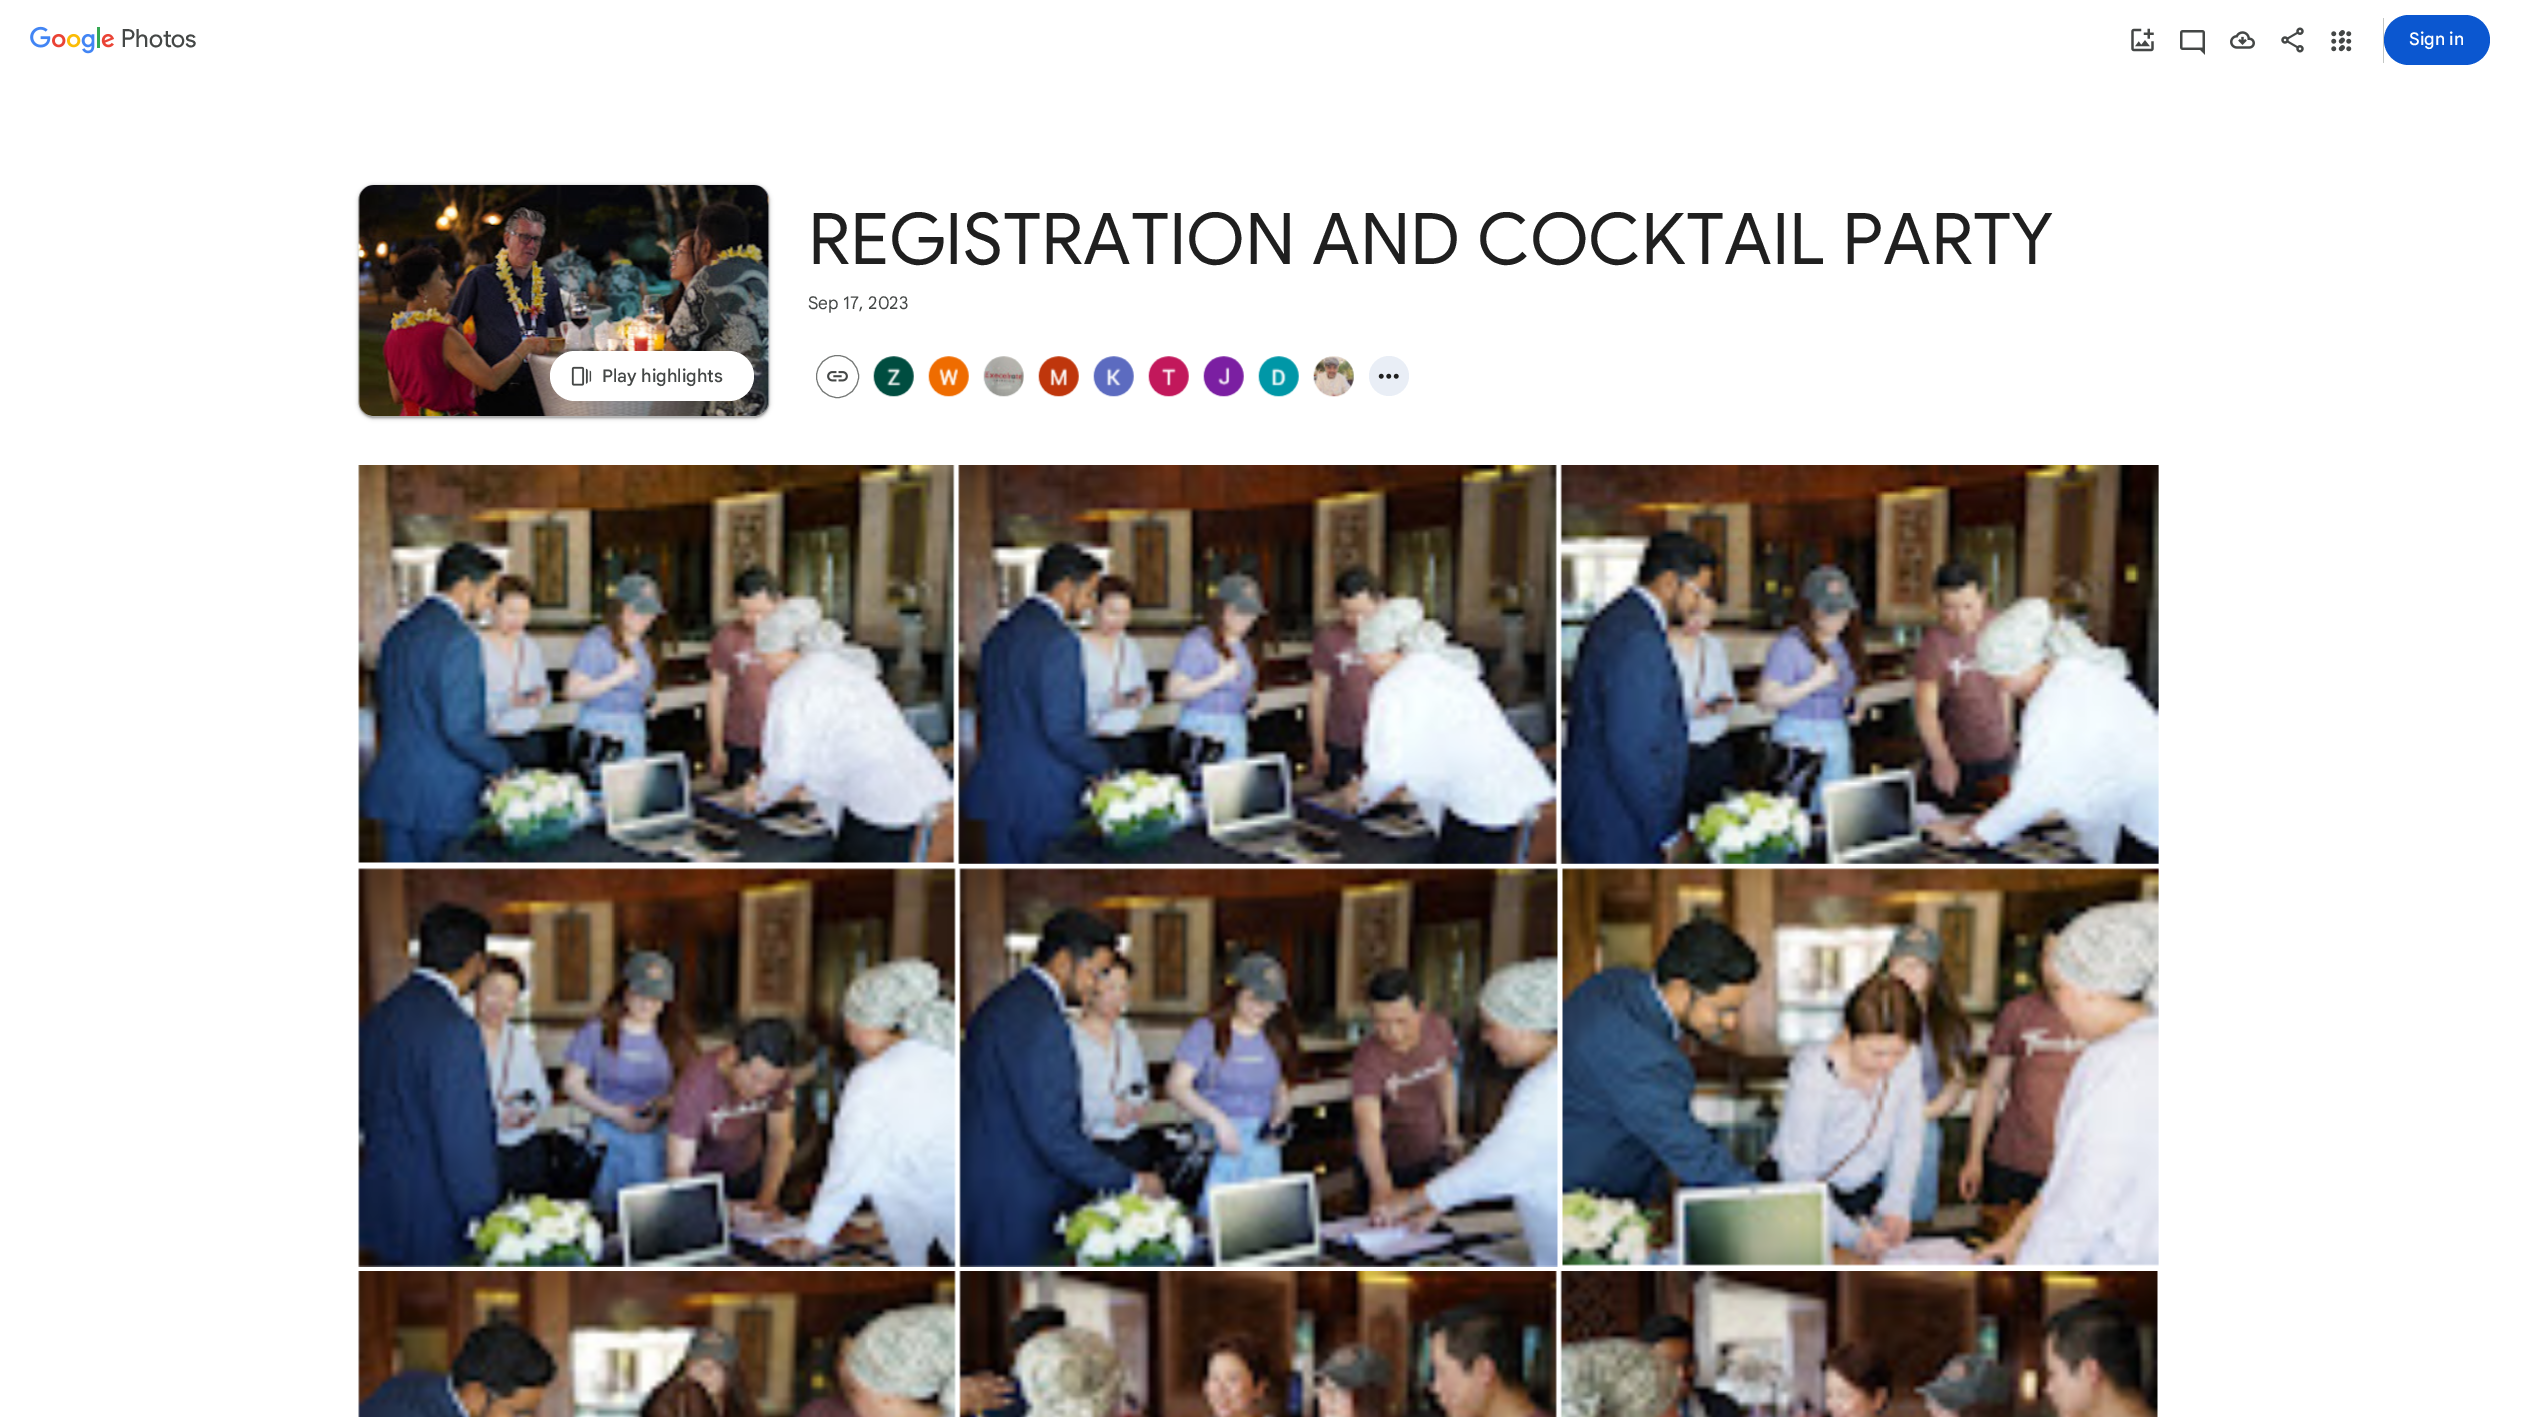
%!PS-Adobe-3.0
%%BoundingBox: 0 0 2535 1417
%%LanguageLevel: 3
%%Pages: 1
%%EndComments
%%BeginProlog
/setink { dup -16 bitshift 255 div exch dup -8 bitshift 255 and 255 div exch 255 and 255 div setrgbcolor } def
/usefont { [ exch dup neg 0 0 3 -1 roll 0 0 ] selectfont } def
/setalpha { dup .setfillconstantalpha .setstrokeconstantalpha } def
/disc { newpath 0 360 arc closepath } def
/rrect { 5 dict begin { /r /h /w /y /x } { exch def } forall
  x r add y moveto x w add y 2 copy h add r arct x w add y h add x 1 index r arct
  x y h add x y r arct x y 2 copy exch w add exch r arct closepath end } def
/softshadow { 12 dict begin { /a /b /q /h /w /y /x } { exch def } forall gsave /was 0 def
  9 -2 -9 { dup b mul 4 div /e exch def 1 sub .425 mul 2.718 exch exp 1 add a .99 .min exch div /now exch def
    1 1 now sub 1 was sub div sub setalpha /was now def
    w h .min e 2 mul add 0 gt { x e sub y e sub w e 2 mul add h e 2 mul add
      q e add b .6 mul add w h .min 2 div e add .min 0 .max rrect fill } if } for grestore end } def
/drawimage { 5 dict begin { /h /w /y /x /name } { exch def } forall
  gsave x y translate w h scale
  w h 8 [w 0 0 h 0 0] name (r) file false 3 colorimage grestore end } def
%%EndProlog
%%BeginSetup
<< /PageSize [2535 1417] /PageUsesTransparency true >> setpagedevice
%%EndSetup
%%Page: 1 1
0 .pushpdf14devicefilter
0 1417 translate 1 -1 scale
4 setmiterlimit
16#FFFFFF setink
0 0 2535 1417 rectfill
(img1.raw) 30 26 84 28 drawimage
/ProductSans-Regular 25 usefont
16#444746 setink
121 47 moveto (Photos) show
(img2.raw) 2131 28 23 24 drawimage
(img3.raw) 2180 30 25 25 drawimage
(img4.raw) 2230 31 25 18 drawimage
(img5.raw) 2281 27 23 26 drawimage
(img6.raw) 2340 30 5 20 drawimage
16#C4C7C5 setink
2383 18 1 45 rectfill
/GoogleSans-Regular 71.25 usefont
16#1F1F1F setink
808 264 moveto (REGISTRATION AND COCKTAIL PARTY) show
/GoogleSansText-Regular 17.5 usefont
16#444746 setink
808 309 moveto (Sep 17, 2023) show
16#747775 setink
837.5 376.5 21 disc stroke
(img7.raw) 827 371 21 11 drawimage
(img8.raw) 873 356 41 41 drawimage
(img9.raw) 928 356 41 41 drawimage
(img10.raw) 983 356 41 41 drawimage
(img11.raw) 1038 356 41 41 drawimage
(img12.raw) 1093 356 41 41 drawimage
(img13.raw) 1148 356 41 41 drawimage
(img14.raw) 1203 356 41 41 drawimage
(img15.raw) 1258 356 41 41 drawimage
(img16.raw) 1313 356 41 41 drawimage
16#E9EEF6 setink
1389 376 20 disc fill
(img17.raw) 1378 373 21 6 drawimage
16#F8FAFD setink
359 185 410 231 15 rrect fill
16#000000 setink
358 185 412 234 16 2 0.15 softshadow
359 186 410 232 15 1 0.3 softshadow
(img18.raw) 358 185 412 232 drawimage
16#FFFFFF setink
550 351 204 50 25 rrect fill
(img19.raw) 571 366 21 20 drawimage
/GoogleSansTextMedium-Medium 17.5 usefont
16#444746 setink
602 382 moveto (Play highlights) show
(img20.raw) 358 465 597 398 drawimage
(img21.raw) 958 465 599 399 drawimage
(img22.raw) 1560 465 599 399 drawimage
(img23.raw) 358 868 598 399 drawimage
(img24.raw) 959 868 599 399 drawimage
(img25.raw) 1562 868 597 398 drawimage
(img26.raw) 358 1271 598 146 drawimage
(img27.raw) 959 1271 598 146 drawimage
(img28.raw) 1560 1271 598 146 drawimage
(img29.raw) 2331 31 21 21 drawimage
16#0B57D0 setink
2384 15 106 50 25 rrect fill
16#FFFFFF setink
2409 45 moveto (Sign in) show
.poppdf14devicefilter showpage
%%EOF
